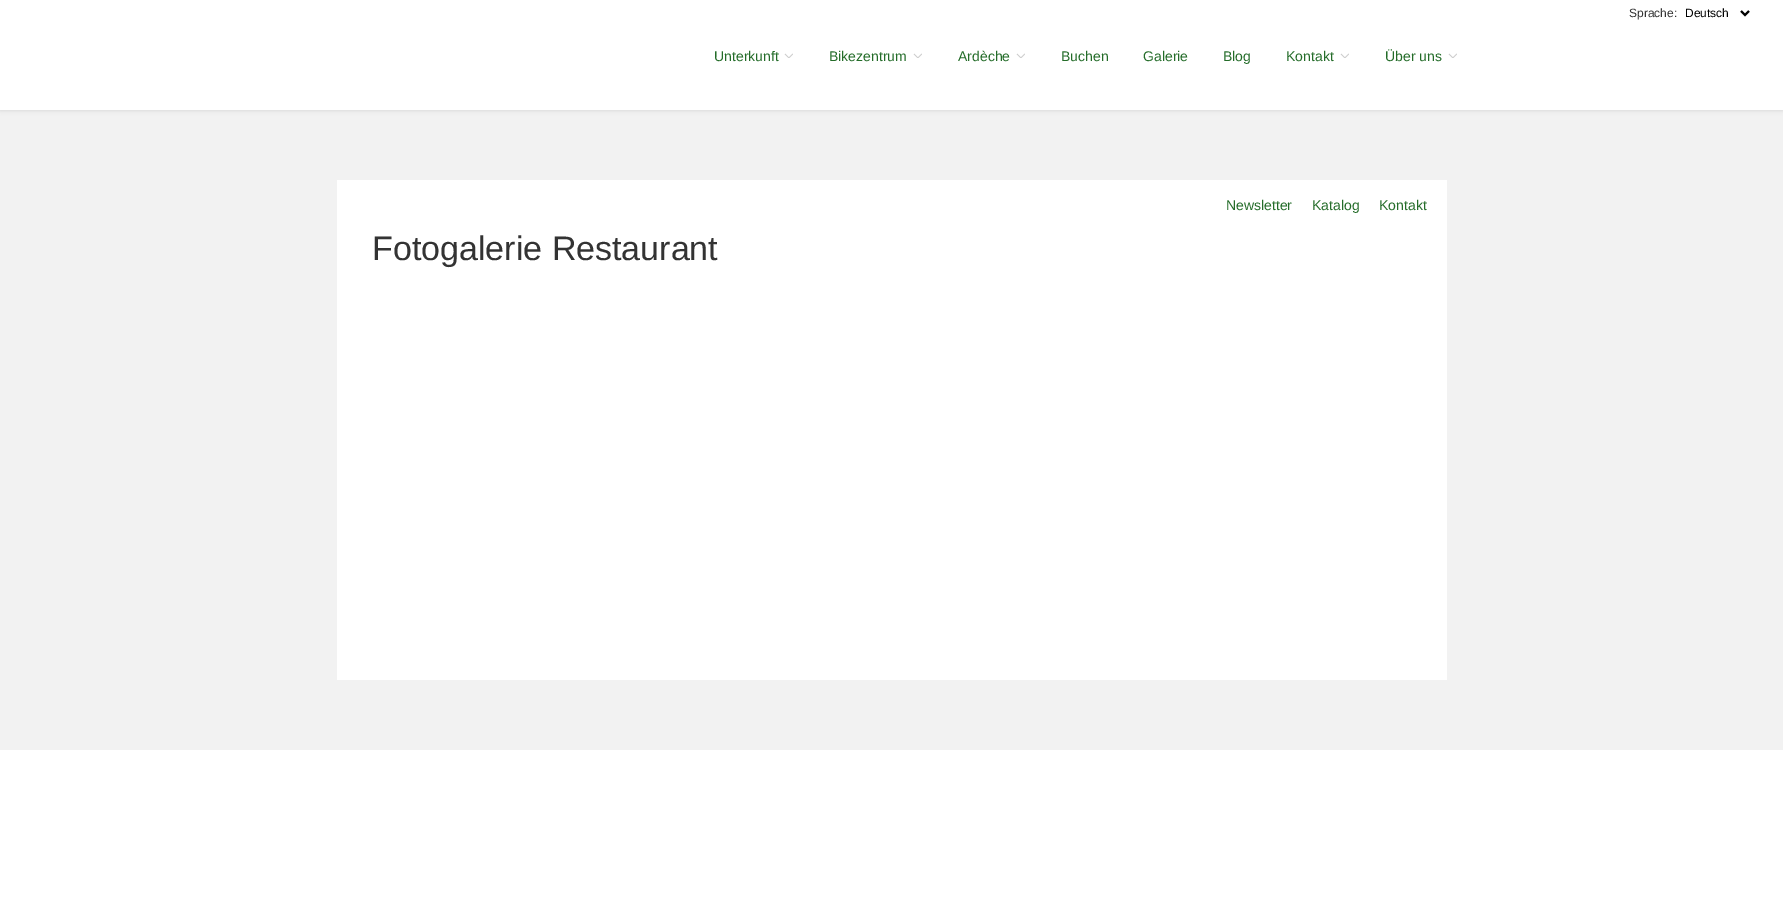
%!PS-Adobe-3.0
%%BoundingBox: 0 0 1783 902
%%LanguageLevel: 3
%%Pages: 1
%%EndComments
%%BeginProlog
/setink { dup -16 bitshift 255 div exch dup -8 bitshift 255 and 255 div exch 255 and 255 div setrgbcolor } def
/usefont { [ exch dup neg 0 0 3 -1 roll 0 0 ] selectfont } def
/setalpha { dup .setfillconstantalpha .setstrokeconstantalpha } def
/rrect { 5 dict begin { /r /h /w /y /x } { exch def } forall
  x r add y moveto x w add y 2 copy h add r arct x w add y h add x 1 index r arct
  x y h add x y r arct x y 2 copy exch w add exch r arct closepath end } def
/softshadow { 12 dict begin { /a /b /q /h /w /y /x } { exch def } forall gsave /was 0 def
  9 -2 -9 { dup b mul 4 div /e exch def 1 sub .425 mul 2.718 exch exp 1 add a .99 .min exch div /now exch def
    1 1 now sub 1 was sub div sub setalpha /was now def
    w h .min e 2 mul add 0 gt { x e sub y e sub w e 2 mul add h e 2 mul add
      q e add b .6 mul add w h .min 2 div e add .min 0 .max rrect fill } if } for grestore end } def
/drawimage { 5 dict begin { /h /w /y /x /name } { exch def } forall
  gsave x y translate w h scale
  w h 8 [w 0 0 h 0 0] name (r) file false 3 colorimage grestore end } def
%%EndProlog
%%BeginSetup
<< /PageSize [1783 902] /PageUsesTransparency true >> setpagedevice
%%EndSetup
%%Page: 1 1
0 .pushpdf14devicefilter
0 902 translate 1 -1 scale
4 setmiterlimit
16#FFFFFF setink
0 0 1783 902 rectfill
16#F2F2F2 setink
0 110 1783 640 rectfill
16#000000 setink
0 0 1783 110 0 2.5 0.13 softshadow
16#FFFFFF setink
0 0 1783 110 rectfill
/LiberationSans-Regular 12 usefont
16#333333 setink
1629 17 moveto (Sprache:) show
16#000000 setink
2 setlinewidth
1741 11 moveto 1745 15 lineto 1749 11 lineto stroke
1685 17 moveto (Deutsch) show
/LiberationSans-Regular 14 usefont
16#246C29 setink
714 61 moveto (Unterkunft) show
(img1.raw) 784 53 9 5 drawimage
829 61 moveto (Bikezentrum) show
(img1.raw) 913 53 9 5 drawimage
958 61 moveto (Ardèche) show
(img1.raw) 1016 53 9 5 drawimage
[
    [(Buchen) 1061 61]
    [(Galerie) 1143 61]
    [(Blog) 1223 61]
    [(Kontakt) 1286 61]
] { aload pop moveto show } forall
(img1.raw) 1340 53 9 5 drawimage
1385 61 moveto (Über uns) show
(img1.raw) 1448 53 9 5 drawimage
16#FFFFFF setink
337 180 1110 500 rectfill
16#246C29 setink
[
    [(Newsletter) 1226 210]
    [(Katalog) 1312 210]
    [(Kontakt) 1379 210]
] { aload pop moveto show } forall
/LiberationSans-Regular 34 usefont
16#333333 setink
372 260 moveto (Fotogalerie Restaurant) show
.poppdf14devicefilter showpage
%%EOF
